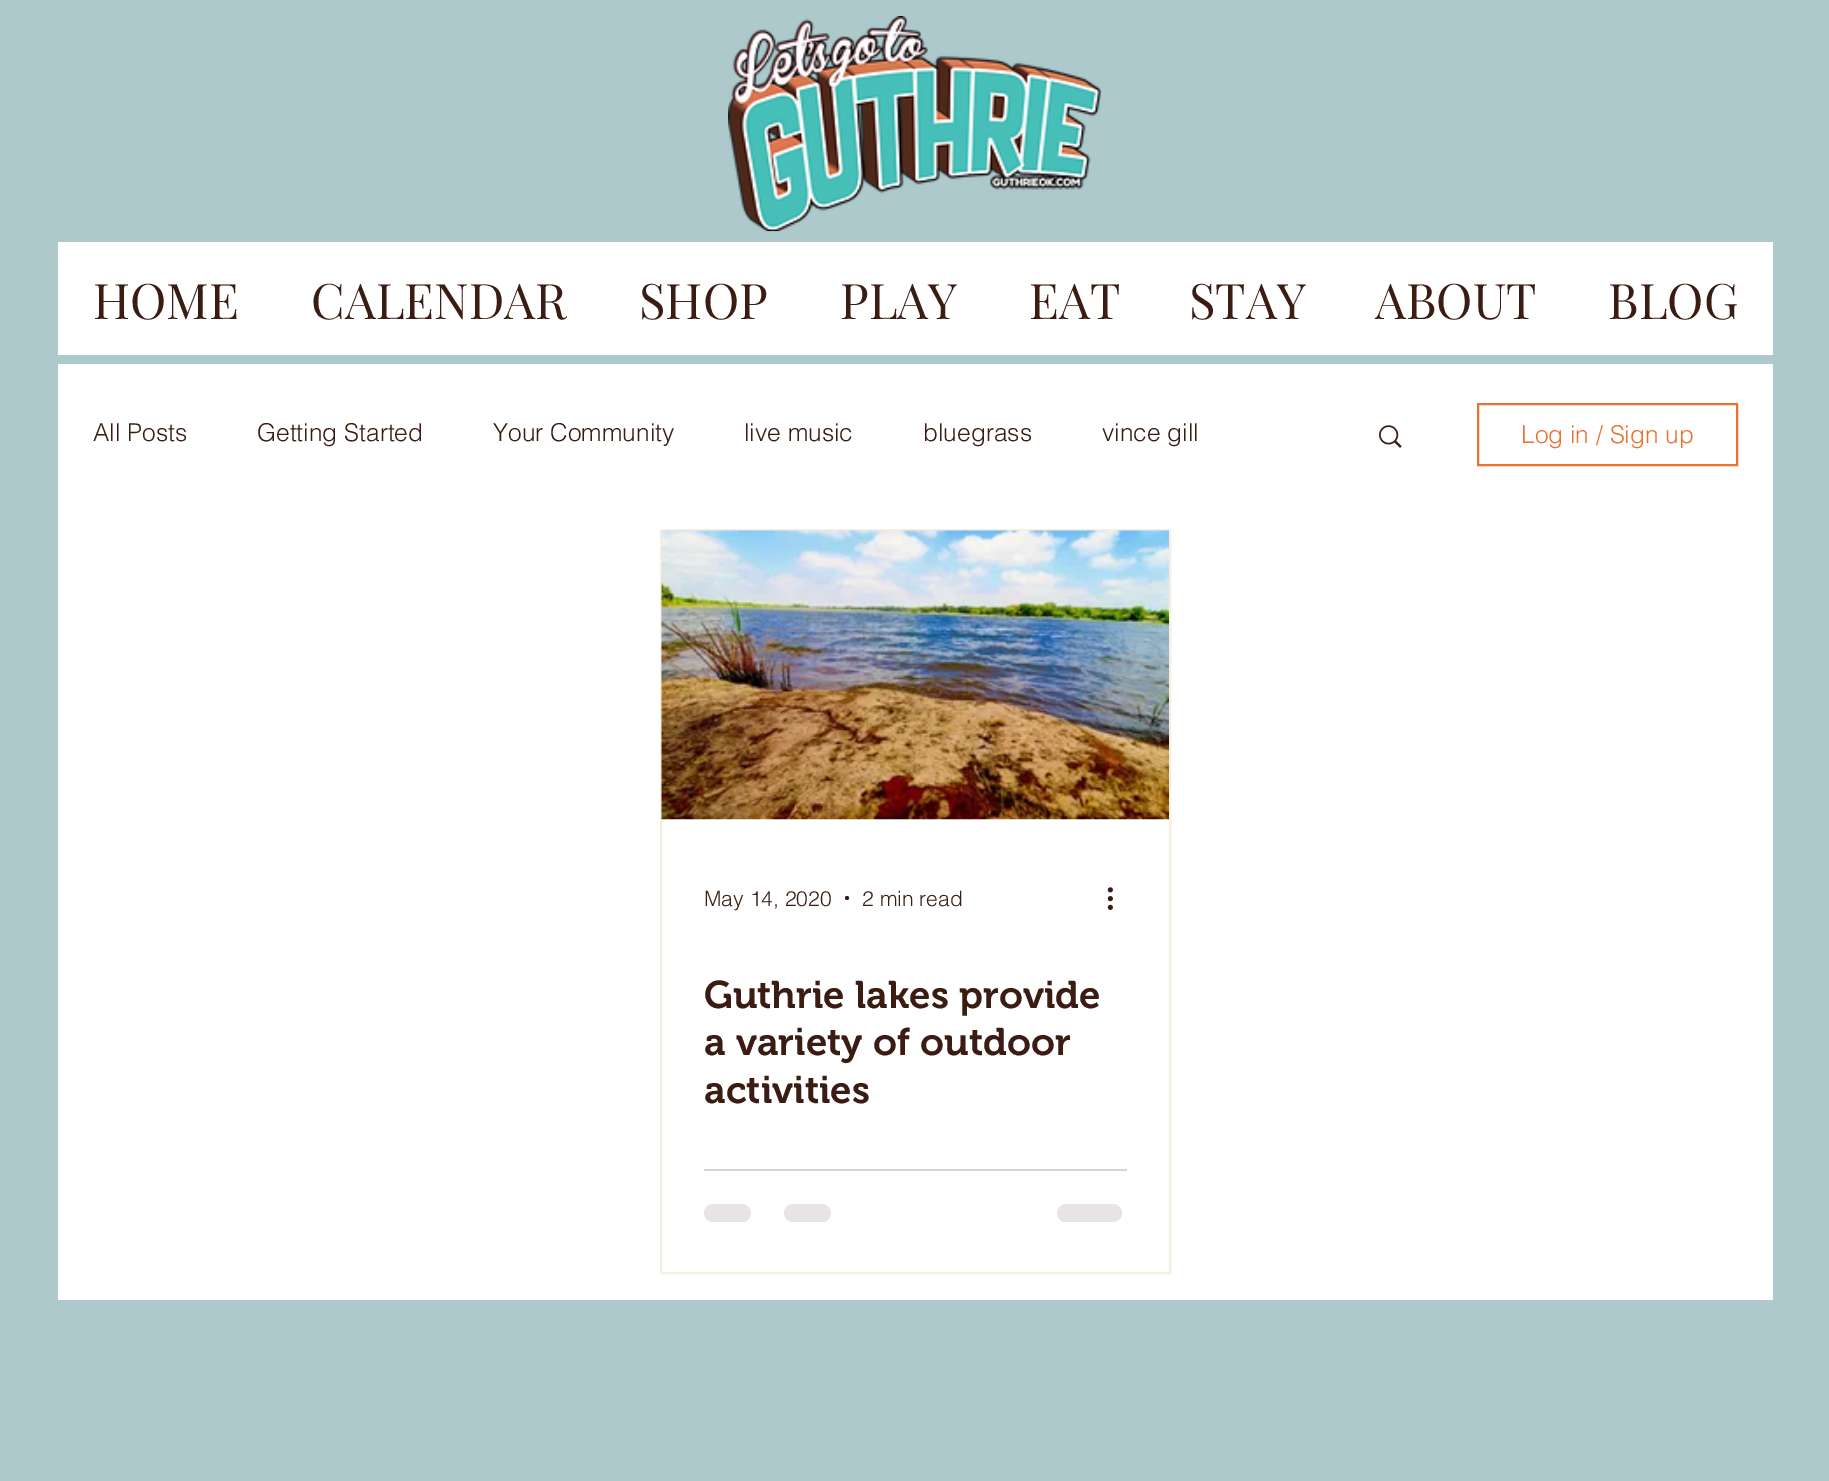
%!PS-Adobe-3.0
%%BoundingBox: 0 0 1829 1481
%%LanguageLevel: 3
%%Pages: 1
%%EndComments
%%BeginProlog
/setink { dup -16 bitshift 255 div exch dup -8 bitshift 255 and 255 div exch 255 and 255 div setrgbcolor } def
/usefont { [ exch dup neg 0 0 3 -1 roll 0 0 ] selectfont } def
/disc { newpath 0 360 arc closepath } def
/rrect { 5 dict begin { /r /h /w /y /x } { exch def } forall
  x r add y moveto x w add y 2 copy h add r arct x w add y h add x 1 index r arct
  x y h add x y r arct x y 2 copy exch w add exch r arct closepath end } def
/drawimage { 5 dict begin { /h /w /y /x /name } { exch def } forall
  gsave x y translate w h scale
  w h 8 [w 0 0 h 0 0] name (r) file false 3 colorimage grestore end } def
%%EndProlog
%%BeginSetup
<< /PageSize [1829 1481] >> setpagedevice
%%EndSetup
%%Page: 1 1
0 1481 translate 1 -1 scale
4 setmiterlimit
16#ADC9CC setink
0 0 1829 1481 rectfill
(img1.raw) 728 16 373 216 drawimage
16#FFFFFF setink
58 242 1715 113 rectfill
/PlayfairDisplay-Regular 49 usefont
16#3A1C13 setink
[
    [(HOME) 93 319]
    [(CALENDAR) 311 319]
    [(SHOP) 639 319]
    [(PLAY) 840 319]
    [(EAT) 1029 319]
    [(STAY) 1189 319]
    [(ABOUT) 1375 319]
    [(BLOG) 1608 319]
] { aload pop moveto show } forall
16#FFFFFF setink
58 364 1715 936 rectfill
/helvetica-Light 24.5 usefont
16#3A1C13 setink
[
    [(All Posts) 93 441]
    [(Getting Started) 257 441]
    [(Your Community) 493 441]
    [(live music) 744 441]
    [(bluegrass) 923 441]
    [(vince gill) 1102 441]
] { aload pop moveto show } forall
(img2.raw) 1379 425 23 23 drawimage
16#E87330 setink
2 setlinewidth
1478 404 259 61 rectstroke
1521 443 moveto (Log in / Sign up) show
16#F4EFE1 setink
661 530 509 743 rectstroke
(img3.raw) 661 530 508 290 drawimage
/helvetica-Light 21 usefont
16#3A1C13 setink
704 906 moveto (May 14, 2020) show
847 898 2 disc fill
862 906 moveto (2 min read) show
(img4.raw) 1107 887 6 23 drawimage
/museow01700-SemiBold 38.5 usefont
[
    [(Guthrie lakes provide) 704 1008]
    [(a variety of outdoor) 704 1055]
    [(activities) 704 1103]
] { aload pop moveto show } forall
16#D8D2D0 setink
704 1169 423 2 rectfill
16#E7E4E3 setink
704 1204 47 18 9 rrect fill
784 1204 47 18 9 rrect fill
1057 1204 65 18 9 rrect fill
showpage
%%EOF
